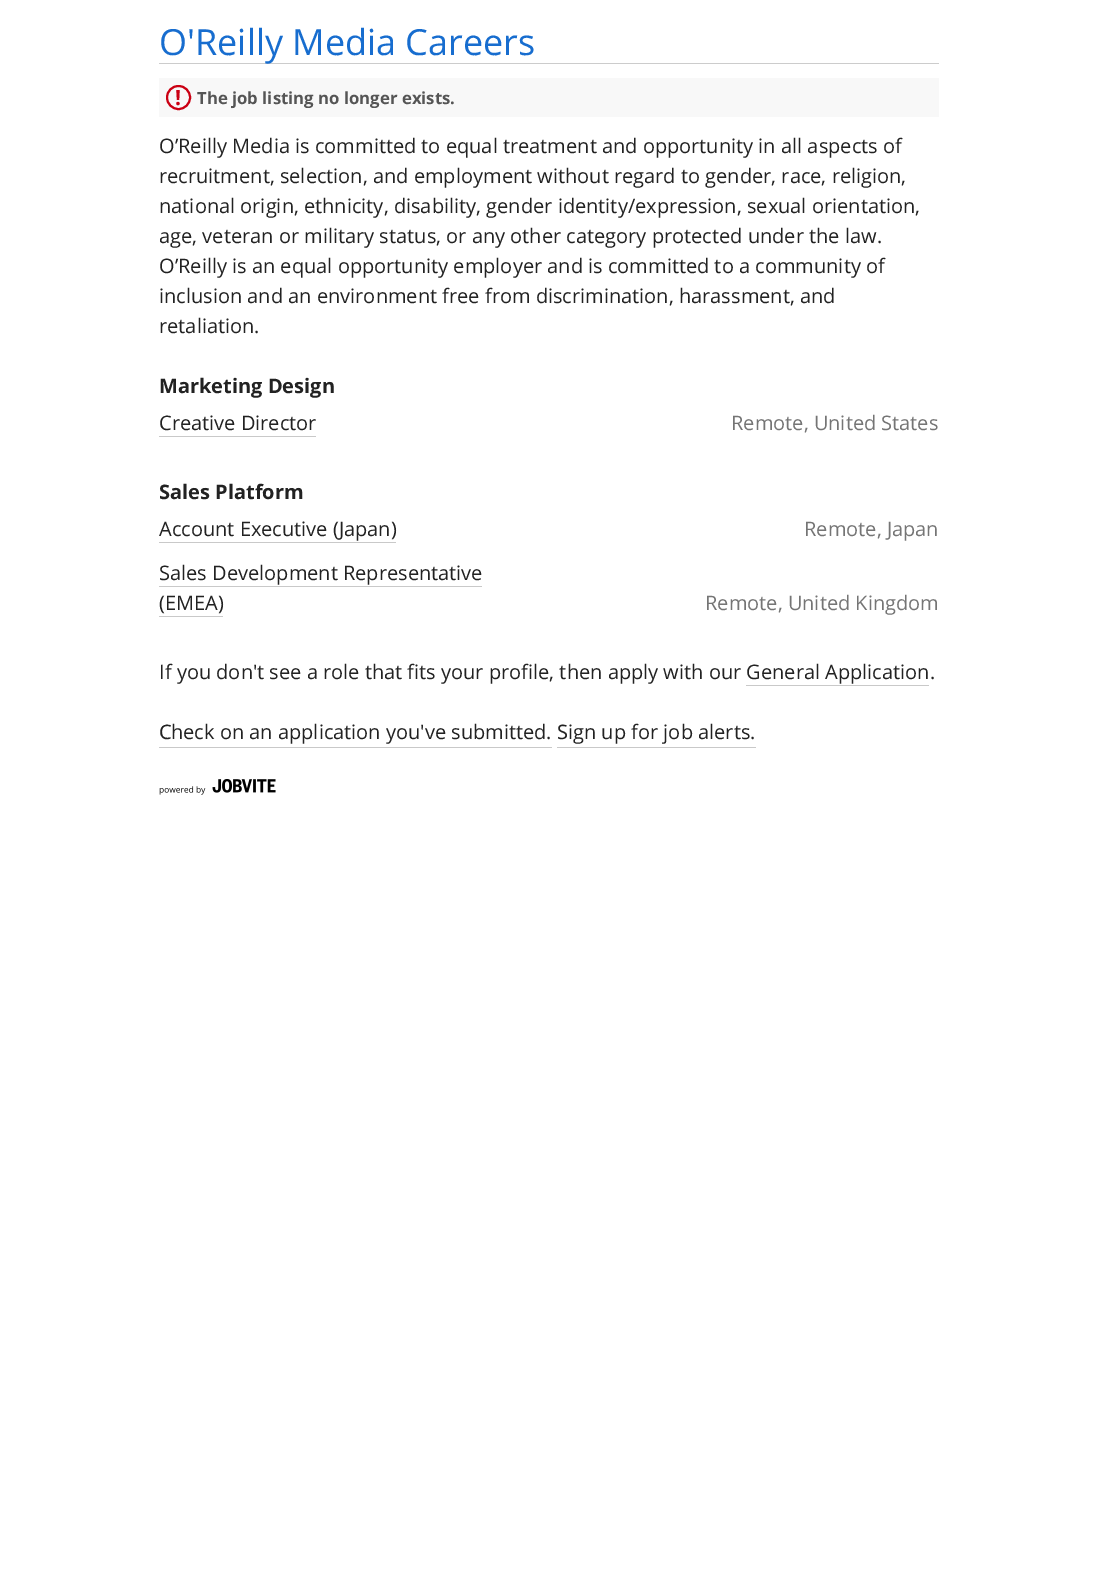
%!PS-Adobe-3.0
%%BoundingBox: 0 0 1097 1577
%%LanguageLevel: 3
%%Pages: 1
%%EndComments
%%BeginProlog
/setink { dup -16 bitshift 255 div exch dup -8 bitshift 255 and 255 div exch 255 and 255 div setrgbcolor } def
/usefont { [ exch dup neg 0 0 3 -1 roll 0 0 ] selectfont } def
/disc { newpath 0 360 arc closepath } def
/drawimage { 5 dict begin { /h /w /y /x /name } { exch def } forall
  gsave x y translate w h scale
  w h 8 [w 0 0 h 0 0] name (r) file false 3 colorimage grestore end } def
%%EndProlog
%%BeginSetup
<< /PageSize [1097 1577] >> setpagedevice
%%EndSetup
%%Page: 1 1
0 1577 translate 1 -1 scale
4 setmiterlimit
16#FFFFFF setink
0 0 1097 1577 rectfill
16#CCCCCC setink
159 63 780 1 rectfill
/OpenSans-Regular 36 usefont
16#176DCF setink
159 55 moveto (O'Reilly Media Careers) show
16#F8F8F8 setink
159 78 780 39 rectfill
16#CB0013 setink
2 setlinewidth
178.5 97.5 11.5 disc stroke
/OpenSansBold-Bold 21 usefont
175 105 moveto (!) show
/OpenSansBold-Bold 16.75 usefont
16#555555 setink
197 104 moveto (The job listing no longer exists.) show
/OpenSans-Regular 20 usefont
16#222222 setink
[
    [(O’Reilly Media is committed to equal treatment and opportunity in all aspects of) 159 153]
    [(recruitment, selection, and employment without regard to gender, race, religion,) 159 183]
    [(national origin, ethnicity, disability, gender identity/expression, sexual orientation,) 159 213]
    [(age, veteran or military status, or any other category protected under the law.) 159 243]
    [(O’Reilly is an equal opportunity employer and is committed to a community of) 159 273]
    [(inclusion and an environment free from discrimination, harassment, and) 159 303]
    [(retaliation.) 159 333]
] { aload pop moveto show } forall
/OpenSansBold-Bold 20 usefont
159 393 moveto (Marketing Design) show
/OpenSans-Regular 20 usefont
159 430 moveto (Creative Director) show
16#C9C9C9 setink
159 436 157 1 rectfill
16#757575 setink
731 430 moveto (Remote, United States) show
/OpenSansBold-Bold 20 usefont
16#222222 setink
159 499 moveto (Sales Platform) show
/OpenSans-Regular 20 usefont
159 536 moveto (Account Executive \(Japan\)) show
16#C9C9C9 setink
159 542 237 1 rectfill
16#757575 setink
804 536 moveto (Remote, Japan) show
16#222222 setink
159 580 moveto (Sales Development Representative) show
16#C9C9C9 setink
159 586 323 1 rectfill
16#222222 setink
159 610 moveto (\(EMEA\)) show
16#C9C9C9 setink
159 616 64 1 rectfill
16#757575 setink
705 610 moveto (Remote, United Kingdom) show
16#222222 setink
159 679 moveto (If you don't see a role that fits your profile, then apply with our General Application.) show
16#C9C9C9 setink
746 685 183 1 rectfill
159 747 393 1 rectfill
/NotoSans-Regular 20 usefont
16#222222 setink
159 739 moveto (C) show
/OpenSans-Regular 20 usefont
171 739 moveto (heck on an application you've submitted.) show
16#C9C9C9 setink
557 747 199 1 rectfill
/NotoSans-Regular 20 usefont
16#222222 setink
557 739 moveto (S) show
/OpenSans-Regular 20 usefont
568 739 moveto (ign up for job alerts.) show
(img1.raw) 159 779 117 16 drawimage
showpage
%%EOF
